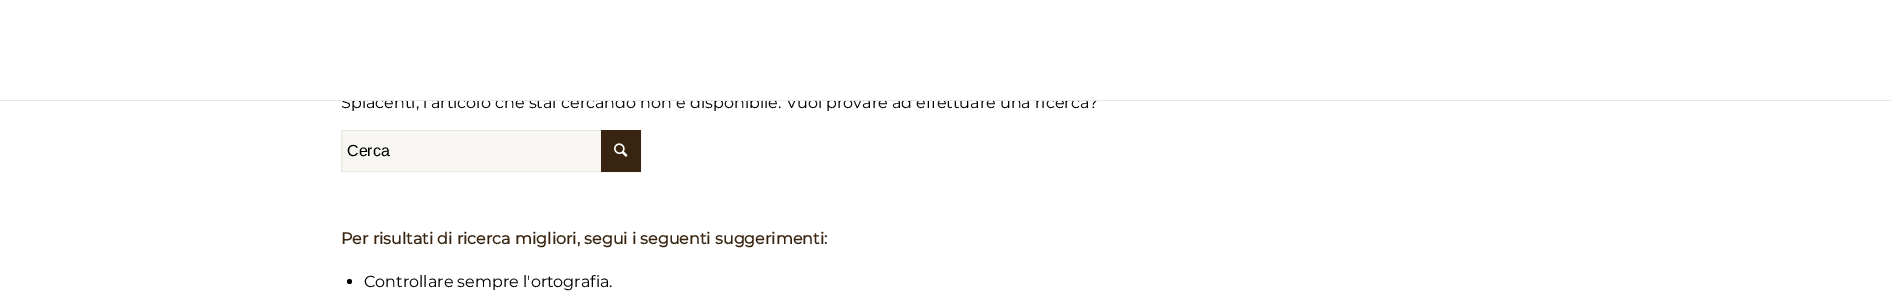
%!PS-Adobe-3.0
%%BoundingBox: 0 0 1891 308
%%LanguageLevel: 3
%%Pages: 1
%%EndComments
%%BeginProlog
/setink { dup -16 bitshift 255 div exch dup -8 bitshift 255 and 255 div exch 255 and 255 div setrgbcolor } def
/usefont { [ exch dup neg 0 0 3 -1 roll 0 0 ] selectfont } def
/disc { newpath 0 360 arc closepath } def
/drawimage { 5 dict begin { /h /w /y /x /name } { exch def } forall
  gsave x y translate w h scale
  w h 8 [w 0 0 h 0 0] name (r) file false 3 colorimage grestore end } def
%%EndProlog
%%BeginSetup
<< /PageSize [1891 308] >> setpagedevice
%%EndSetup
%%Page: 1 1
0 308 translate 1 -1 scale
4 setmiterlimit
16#FFFFFF setink
0 0 1891 308 rectfill
/Montserrat-Thin 16 usefont
16#000000 setink
341 108 moveto (Spiacenti, l'articolo che stai cercando non è disponibile. Vuoi provare ad effettuare una ricerca?) show
[
    [341 96 756 4 16#FFFFFF]
    [0 100 1891 1 16#EBE8E2]
    [342 131 259 40 16#F8F6F2]
] { aload pop setink rectfill } forall
16#EBE8E2 setink
341.5 130.5 299 41 rectstroke
/LiberationSans-Regular 16 usefont
16#000000 setink
347 156 moveto (Cerca) show
16#382410 setink
601 130 40 42 rectfill
(img1.raw) 614 143 14 14 drawimage
/Montserrat-Bold 16 usefont
341 244 moveto (Per risultati di ricerca migliori, segui i seguenti suggerimenti:) show
16#000000 setink
349.5 281.5 2.5 disc fill
/Montserrat-Thin 16 usefont
364 287 moveto (Controllare sempre l'ortografia.) show
showpage
%%EOF
